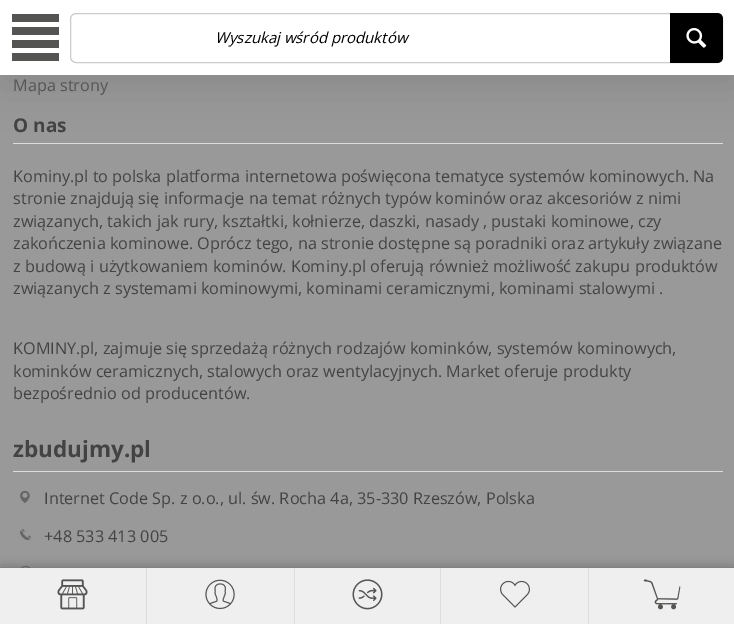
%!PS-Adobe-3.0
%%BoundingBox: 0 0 734 624
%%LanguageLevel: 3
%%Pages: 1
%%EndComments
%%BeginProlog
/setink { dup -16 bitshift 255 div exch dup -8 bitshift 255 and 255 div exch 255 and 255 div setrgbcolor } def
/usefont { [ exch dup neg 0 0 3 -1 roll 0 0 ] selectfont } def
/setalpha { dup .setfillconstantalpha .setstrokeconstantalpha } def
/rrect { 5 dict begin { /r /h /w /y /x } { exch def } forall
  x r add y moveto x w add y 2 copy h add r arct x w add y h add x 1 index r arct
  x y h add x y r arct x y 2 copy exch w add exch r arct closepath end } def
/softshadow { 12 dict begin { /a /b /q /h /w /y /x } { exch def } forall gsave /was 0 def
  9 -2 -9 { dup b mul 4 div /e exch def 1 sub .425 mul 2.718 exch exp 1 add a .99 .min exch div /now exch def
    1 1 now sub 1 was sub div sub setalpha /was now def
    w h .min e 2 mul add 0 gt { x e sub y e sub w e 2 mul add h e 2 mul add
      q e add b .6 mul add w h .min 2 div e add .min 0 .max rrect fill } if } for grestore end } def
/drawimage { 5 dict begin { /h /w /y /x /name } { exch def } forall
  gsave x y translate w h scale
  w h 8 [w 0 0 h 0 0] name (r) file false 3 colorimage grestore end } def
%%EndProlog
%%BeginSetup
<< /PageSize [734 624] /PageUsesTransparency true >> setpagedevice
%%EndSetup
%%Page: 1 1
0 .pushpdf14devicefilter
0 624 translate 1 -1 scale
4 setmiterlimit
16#999999 setink
0 0 734 624 rectfill
16#DADCDE setink
13 143 710 1 rectfill
16#000000 setink
0 13 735 75 0 19 0.1 softshadow
16#FFFFFF setink
0 0 734 75 rectfill
16#545453 setink
59 53 moveto 59 61 lineto 12 61 lineto 12 53 lineto closepath 59 40 moveto 59 48 lineto 12 48 lineto 12 40 lineto closepath 59 27 moveto 59 35 lineto 12 35 lineto 12 27 lineto closepath 59 14 moveto 59 22 lineto 12 22 lineto 12 14 lineto closepath fill
16#CCCCCC setink
70.5 13.5 652 49 5.5 rrect stroke
/OpenSans-Italic 15 usefont
16#000000 setink
215 43 moveto (Wyszukaj wśród produktów) show
670 13 moveto 717 13 lineto 720.5 13 723 15.5 723 19 curveto 723 57 lineto 723 60.5 720.5 63 717 63 curveto 670 63 lineto closepath fill
(img1.raw) 686 28 21 20 drawimage
/OpenSans-Regular 16.25 usefont
16#545453 setink
13 91 moveto (Mapa strony) show
/OpenSans-Bold 19 usefont
16#434343 setink
13 132 moveto (O nas) show
/OpenSans-Regular 16.25 usefont
[
    [(Kominy.pl to polska platforma internetowa poświęcona tematyce systemów kominowych. Na) 13 182]
    [(stronie znajdują się informacje na temat różnych typów kominów oraz akcesoriów z nimi) 13 204]
    [(związanych, takich jak rury, kształtki, kołnierze, daszki, nasady , pustaki kominowe, czy) 13 227]
    [(zakończenia kominowe. Oprócz tego, na stronie dostępne są poradniki oraz artykuły związane) 13 249]
    [(z budową i użytkowaniem kominów. Kominy.pl oferują również możliwość zakupu produktów) 13 272]
    [(związanych z systemami kominowymi, kominami ceramicznymi, kominami stalowymi .) 13 294]
    [(KOMINY.pl, zajmuje się sprzedażą różnych rodzajów kominków, systemów kominowych,) 13 354]
    [(kominków ceramicznych, stalowych oraz wentylacyjnych. Market oferuje produkty) 13 377]
    [(bezpośrednio od producentów.) 13 399]
] { aload pop moveto show } forall
16#DADCDE setink
13 471 710 1 rectfill
/OpenSans-Bold 22.5 usefont
16#434343 setink
13 457 moveto (zbudujmy.pl) show
(img2.raw) 20 490 10 13 drawimage
/OpenSans-Regular 16.25 usefont
44 504 moveto (Internet Code Sp. z o.o., ul. św. Rocha 4a, 35-330 Rzeszów, Polska) show
(img3.raw) 20 529 11 11 drawimage
44 542 moveto (+48 533 413 005) show
(img4.raw) 20 565 10 3 drawimage
16#000000 setink
0 568 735 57 0 6 0.3 softshadow
16#EFEFEF setink
0 568 734 56 rectfill
16#DDDDDD setink
146 568 1 56 rectfill
(img5.raw) 57 579 31 31 drawimage
294 568 1 56 rectfill
(img6.raw) 205 579 30 31 drawimage
440 568 1 56 rectfill
(img7.raw) 352 579 31 31 drawimage
588 568 1 56 rectfill
(img8.raw) 500 580 30 28 drawimage
(img9.raw) 643 579 38 31 drawimage
.poppdf14devicefilter showpage
%%EOF
